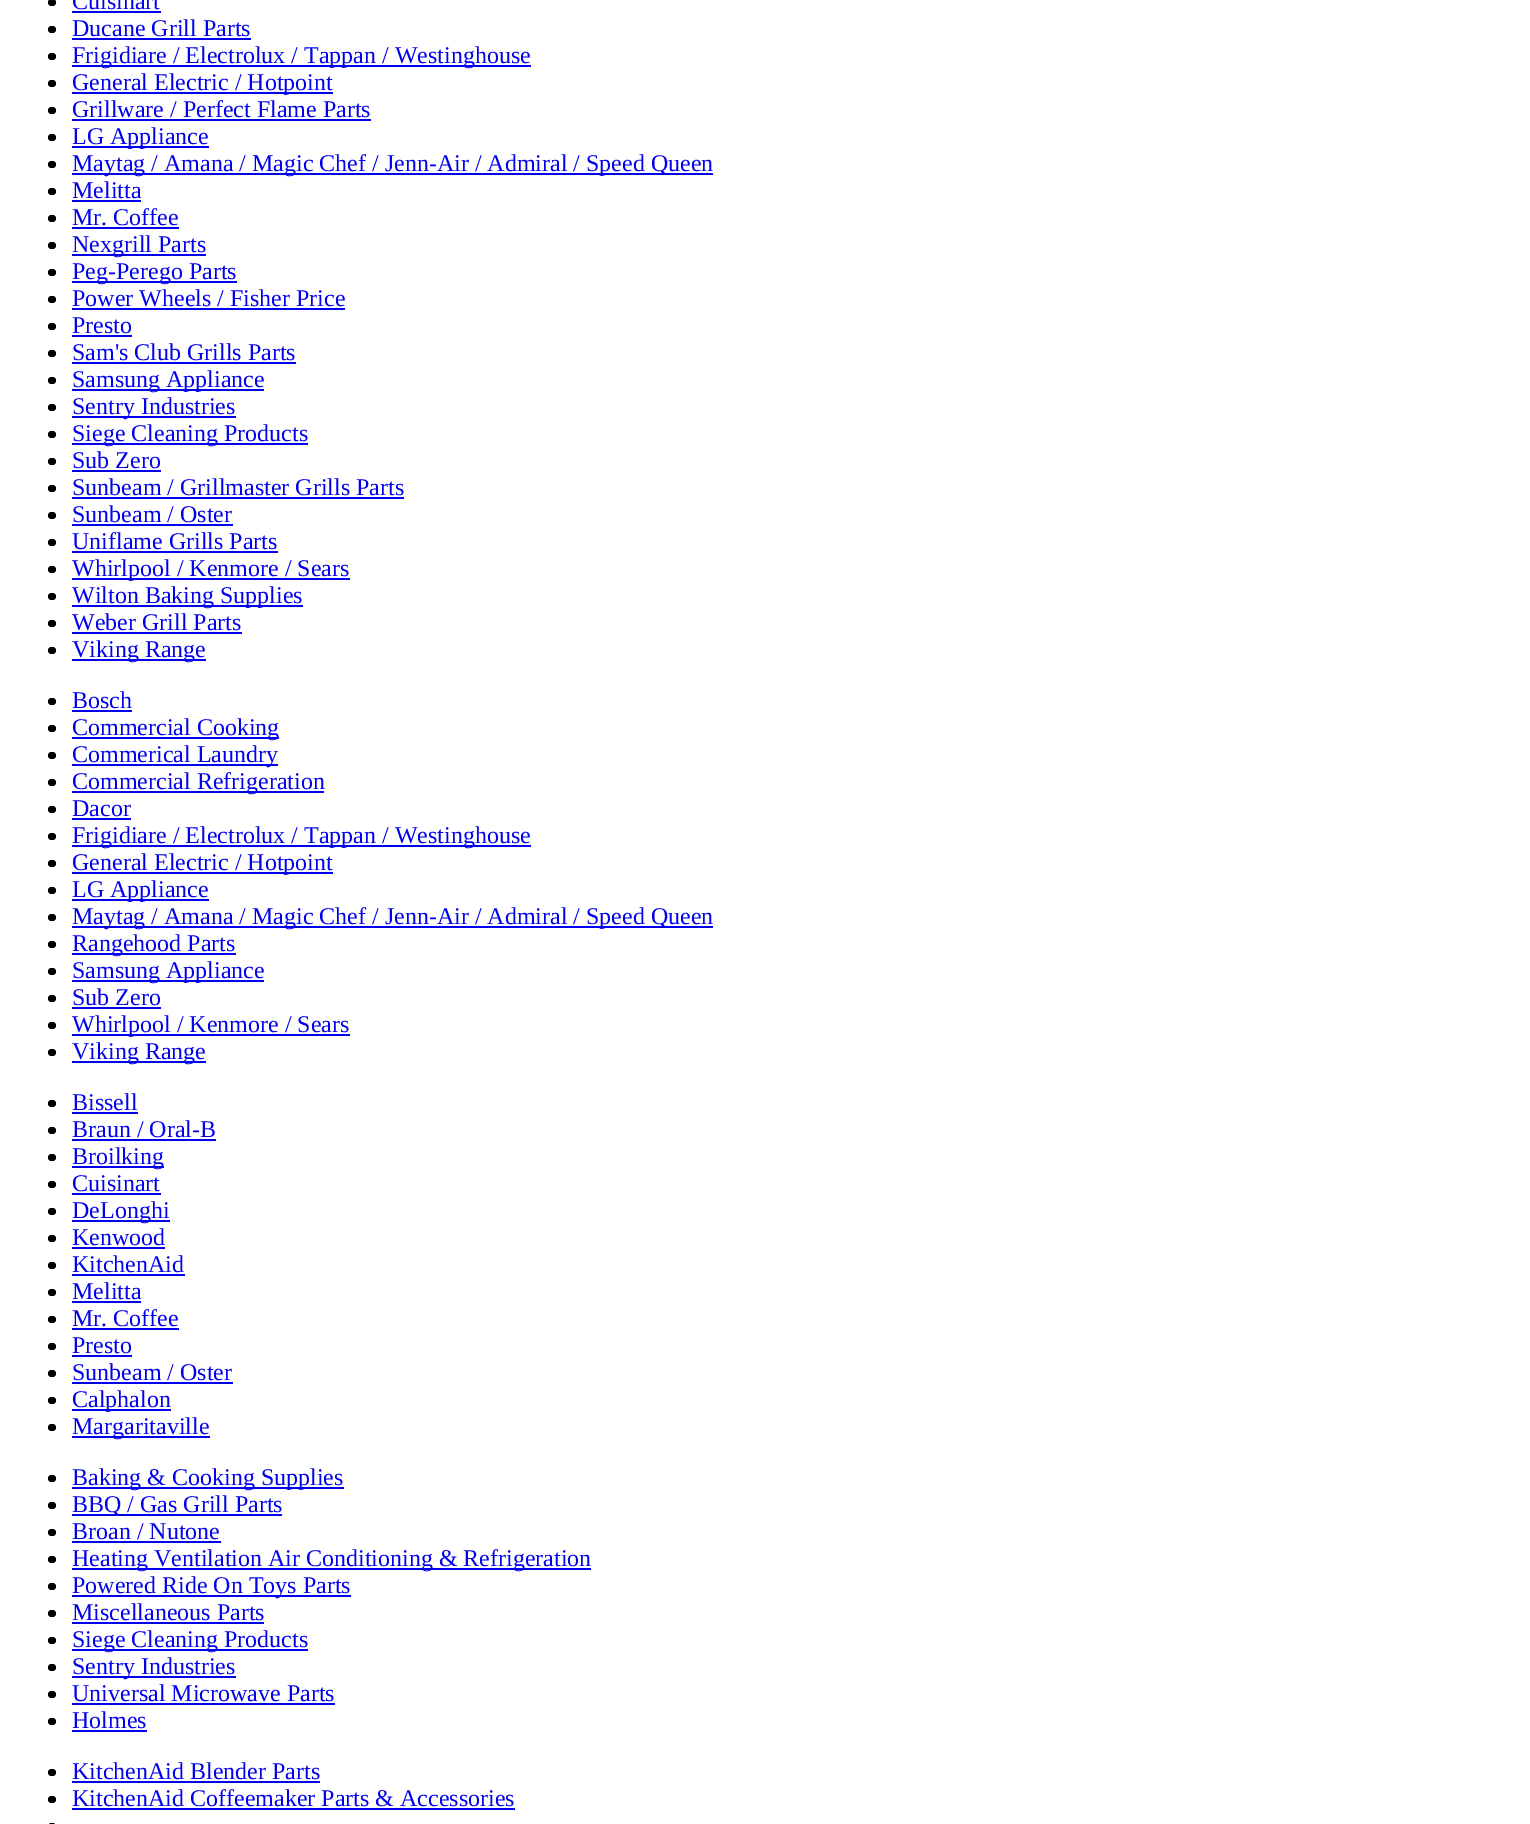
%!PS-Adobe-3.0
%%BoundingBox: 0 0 1530 1824
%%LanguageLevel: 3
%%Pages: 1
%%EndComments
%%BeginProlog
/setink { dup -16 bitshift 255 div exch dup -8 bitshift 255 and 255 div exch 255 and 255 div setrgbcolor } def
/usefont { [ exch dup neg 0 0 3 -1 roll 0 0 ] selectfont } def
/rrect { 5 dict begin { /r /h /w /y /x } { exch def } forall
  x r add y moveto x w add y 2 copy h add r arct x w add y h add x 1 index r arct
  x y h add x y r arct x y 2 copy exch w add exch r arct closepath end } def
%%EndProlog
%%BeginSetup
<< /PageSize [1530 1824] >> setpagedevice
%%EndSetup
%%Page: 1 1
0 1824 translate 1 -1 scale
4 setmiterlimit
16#FFFFFF setink
0 0 1530 1824 rectfill
16#000000 setink
48 -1 8 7 3.5 rrect fill
/LiberationSerif-Regular 24 usefont
16#0000EE setink
72 9 moveto (Cuisinart) show
72 11 89 2 rectfill
16#000000 setink
48 26 8 7 3.5 rrect fill
16#0000EE setink
72 36 moveto (Ducane Grill Parts) show
72 38 179 2 rectfill
16#000000 setink
48 53 8 7 3.5 rrect fill
16#0000EE setink
72 65 459 2 rectfill
72 63 moveto (Frigidiare / Electrolux / Tappan / Westinghouse) show
16#000000 setink
48 80 8 7 3.5 rrect fill
16#0000EE setink
72 92 261 2 rectfill
72 90 moveto (General Electric / Hotpoint) show
16#000000 setink
48 107 8 7 3.5 rrect fill
16#0000EE setink
72 117 moveto (Grillware / Perfect Flame Parts) show
72 119 299 2 rectfill
16#000000 setink
48 134 8 7 3.5 rrect fill
16#0000EE setink
72 146 137 2 rectfill
72 144 moveto (LG Appliance) show
16#000000 setink
48 161 8 7 3.5 rrect fill
16#0000EE setink
72 173 641 2 rectfill
72 171 moveto (Maytag / Amana / Magic Chef / Jenn-Air / Admiral / Speed Queen) show
16#000000 setink
48 188 8 7 3.5 rrect fill
16#0000EE setink
72 198 moveto (Melitta) show
72 200 69 2 rectfill
16#000000 setink
48 215 8 7 3.5 rrect fill
16#0000EE setink
72 225 moveto (Mr. Coffee) show
72 227 107 2 rectfill
16#000000 setink
48 242 8 7 3.5 rrect fill
16#0000EE setink
72 254 134 2 rectfill
72 252 moveto (Nexgrill Parts) show
16#000000 setink
48 269 8 7 3.5 rrect fill
16#0000EE setink
72 281 165 2 rectfill
72 279 moveto (Peg-Perego Parts) show
16#000000 setink
48 296 8 7 3.5 rrect fill
16#0000EE setink
72 306 moveto (Power Wheels / Fisher Price) show
72 308 273 2 rectfill
16#000000 setink
48 323 8 7 3.5 rrect fill
16#0000EE setink
72 333 moveto (Presto) show
72 335 60 2 rectfill
16#000000 setink
48 350 8 7 3.5 rrect fill
16#0000EE setink
72 360 moveto (Sam's Club Grills Parts) show
72 362 224 2 rectfill
16#000000 setink
48 377 8 7 3.5 rrect fill
16#0000EE setink
72 389 192 2 rectfill
72 387 moveto (Samsung Appliance) show
16#000000 setink
48 404 8 7 3.5 rrect fill
16#0000EE setink
72 416 164 2 rectfill
72 414 moveto (Sentry Industries) show
16#000000 setink
48 431 8 7 3.5 rrect fill
16#0000EE setink
72 443 236 2 rectfill
72 441 moveto (Siege Cleaning Products) show
16#000000 setink
48 458 8 7 3.5 rrect fill
16#0000EE setink
72 468 moveto (Sub Zero) show
72 470 89 2 rectfill
16#000000 setink
48 485 8 7 3.5 rrect fill
16#0000EE setink
72 495 moveto (Sunbeam / Grillmaster Grills Parts) show
72 497 332 2 rectfill
16#000000 setink
48 512 8 7 3.5 rrect fill
16#0000EE setink
72 522 moveto (Sunbeam / Oster) show
72 524 161 2 rectfill
16#000000 setink
48 539 8 7 3.5 rrect fill
16#0000EE setink
72 549 moveto (Uniflame Grills Parts) show
72 551 206 2 rectfill
16#000000 setink
48 566 8 7 3.5 rrect fill
16#0000EE setink
72 578 278 2 rectfill
72 576 moveto (Whirlpool / Kenmore / Sears) show
16#000000 setink
48 593 8 7 3.5 rrect fill
16#0000EE setink
72 605 231 2 rectfill
72 603 moveto (Wilton Baking Supplies) show
16#000000 setink
48 620 8 7 3.5 rrect fill
16#0000EE setink
72 630 moveto (Weber Grill Parts) show
72 632 170 2 rectfill
16#000000 setink
48 647 8 7 3.5 rrect fill
16#0000EE setink
72 659 134 2 rectfill
72 657 moveto (Viking Range) show
16#000000 setink
48 698 8 7 3.5 rrect fill
16#0000EE setink
72 708 moveto (Bosch) show
72 710 60 2 rectfill
16#000000 setink
48 725 8 7 3.5 rrect fill
16#0000EE setink
72 737 207 2 rectfill
72 735 moveto (Commercial Cooking) show
16#000000 setink
48 752 8 7 3.5 rrect fill
16#0000EE setink
72 764 206 2 rectfill
72 762 moveto (Commerical Laundry) show
16#000000 setink
48 779 8 7 3.5 rrect fill
16#0000EE setink
72 791 252 2 rectfill
72 789 moveto (Commercial Refrigeration) show
16#000000 setink
48 806 8 7 3.5 rrect fill
16#0000EE setink
72 816 moveto (Dacor) show
72 818 59 2 rectfill
16#000000 setink
48 833 8 7 3.5 rrect fill
16#0000EE setink
72 845 459 2 rectfill
72 843 moveto (Frigidiare / Electrolux / Tappan / Westinghouse) show
16#000000 setink
48 860 8 7 3.5 rrect fill
16#0000EE setink
72 872 261 2 rectfill
72 870 moveto (General Electric / Hotpoint) show
16#000000 setink
48 887 8 7 3.5 rrect fill
16#0000EE setink
72 899 137 2 rectfill
72 897 moveto (LG Appliance) show
16#000000 setink
48 914 8 7 3.5 rrect fill
16#0000EE setink
72 926 641 2 rectfill
72 924 moveto (Maytag / Amana / Magic Chef / Jenn-Air / Admiral / Speed Queen) show
16#000000 setink
48 941 8 7 3.5 rrect fill
16#0000EE setink
72 953 164 2 rectfill
72 951 moveto (Rangehood Parts) show
16#000000 setink
48 968 8 7 3.5 rrect fill
16#0000EE setink
72 980 192 2 rectfill
72 978 moveto (Samsung Appliance) show
16#000000 setink
48 995 8 7 3.5 rrect fill
16#0000EE setink
72 1005 moveto (Sub Zero) show
72 1007 89 2 rectfill
16#000000 setink
48 1022 8 7 3.5 rrect fill
16#0000EE setink
72 1034 278 2 rectfill
72 1032 moveto (Whirlpool / Kenmore / Sears) show
16#000000 setink
48 1049 8 7 3.5 rrect fill
16#0000EE setink
72 1061 134 2 rectfill
72 1059 moveto (Viking Range) show
16#000000 setink
48 1100 8 7 3.5 rrect fill
16#0000EE setink
72 1110 moveto (Bissell) show
72 1112 66 2 rectfill
16#000000 setink
48 1127 8 7 3.5 rrect fill
16#0000EE setink
72 1137 moveto (Braun / Oral-B) show
72 1139 144 2 rectfill
16#000000 setink
48 1154 8 7 3.5 rrect fill
16#0000EE setink
72 1166 92 2 rectfill
72 1164 moveto (Broilking) show
16#000000 setink
48 1181 8 7 3.5 rrect fill
16#0000EE setink
72 1191 moveto (Cuisinart) show
72 1193 89 2 rectfill
16#000000 setink
48 1208 8 7 3.5 rrect fill
16#0000EE setink
72 1220 98 2 rectfill
72 1218 moveto (DeLonghi) show
16#000000 setink
48 1235 8 7 3.5 rrect fill
16#0000EE setink
72 1245 moveto (Kenwood) show
72 1247 93 2 rectfill
16#000000 setink
48 1262 8 7 3.5 rrect fill
16#0000EE setink
72 1272 moveto (KitchenAid) show
72 1274 113 2 rectfill
16#000000 setink
48 1289 8 7 3.5 rrect fill
16#0000EE setink
72 1299 moveto (Melitta) show
72 1301 69 2 rectfill
16#000000 setink
48 1316 8 7 3.5 rrect fill
16#0000EE setink
72 1326 moveto (Mr. Coffee) show
72 1328 107 2 rectfill
16#000000 setink
48 1343 8 7 3.5 rrect fill
16#0000EE setink
72 1353 moveto (Presto) show
72 1355 60 2 rectfill
16#000000 setink
48 1370 8 7 3.5 rrect fill
16#0000EE setink
72 1380 moveto (Sunbeam / Oster) show
72 1382 161 2 rectfill
16#000000 setink
48 1397 8 7 3.5 rrect fill
16#0000EE setink
72 1409 99 2 rectfill
72 1407 moveto (Calphalon) show
16#000000 setink
48 1424 8 7 3.5 rrect fill
16#0000EE setink
72 1436 138 2 rectfill
72 1434 moveto (Margaritaville) show
16#000000 setink
48 1475 8 7 3.5 rrect fill
16#0000EE setink
72 1487 272 2 rectfill
72 1485 moveto (Baking & Cooking Supplies) show
16#000000 setink
48 1502 8 7 3.5 rrect fill
16#0000EE setink
72 1514 210 2 rectfill
72 1512 moveto (BBQ / Gas Grill Parts) show
16#000000 setink
48 1529 8 7 3.5 rrect fill
16#0000EE setink
72 1539 moveto (Broan / Nutone) show
72 1541 149 2 rectfill
16#000000 setink
48 1556 8 7 3.5 rrect fill
16#0000EE setink
72 1568 519 2 rectfill
72 1566 moveto (Heating Ventilation Air Conditioning & Refrigeration) show
16#000000 setink
48 1583 8 7 3.5 rrect fill
16#0000EE setink
72 1595 279 2 rectfill
72 1593 moveto (Powered Ride On Toys Parts) show
16#000000 setink
48 1610 8 7 3.5 rrect fill
16#0000EE setink
72 1620 moveto (Miscellaneous Parts) show
72 1622 192 2 rectfill
16#000000 setink
48 1637 8 7 3.5 rrect fill
16#0000EE setink
72 1649 236 2 rectfill
72 1647 moveto (Siege Cleaning Products) show
16#000000 setink
48 1664 8 7 3.5 rrect fill
16#0000EE setink
72 1676 164 2 rectfill
72 1674 moveto (Sentry Industries) show
16#000000 setink
48 1691 8 7 3.5 rrect fill
16#0000EE setink
72 1701 moveto (Universal Microwave Parts) show
72 1703 263 2 rectfill
16#000000 setink
48 1718 8 7 3.5 rrect fill
16#0000EE setink
72 1728 moveto (Holmes) show
72 1730 75 2 rectfill
16#000000 setink
48 1769 8 7 3.5 rrect fill
16#0000EE setink
72 1779 moveto (KitchenAid Blender Parts) show
72 1781 248 2 rectfill
16#000000 setink
48 1796 8 7 3.5 rrect fill
16#0000EE setink
72 1806 moveto (KitchenAid Coffeemaker Parts & Accessories) show
72 1808 443 2 rectfill
16#000000 setink
48 1823 8 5 3.5 rrect fill
showpage
%%EOF
